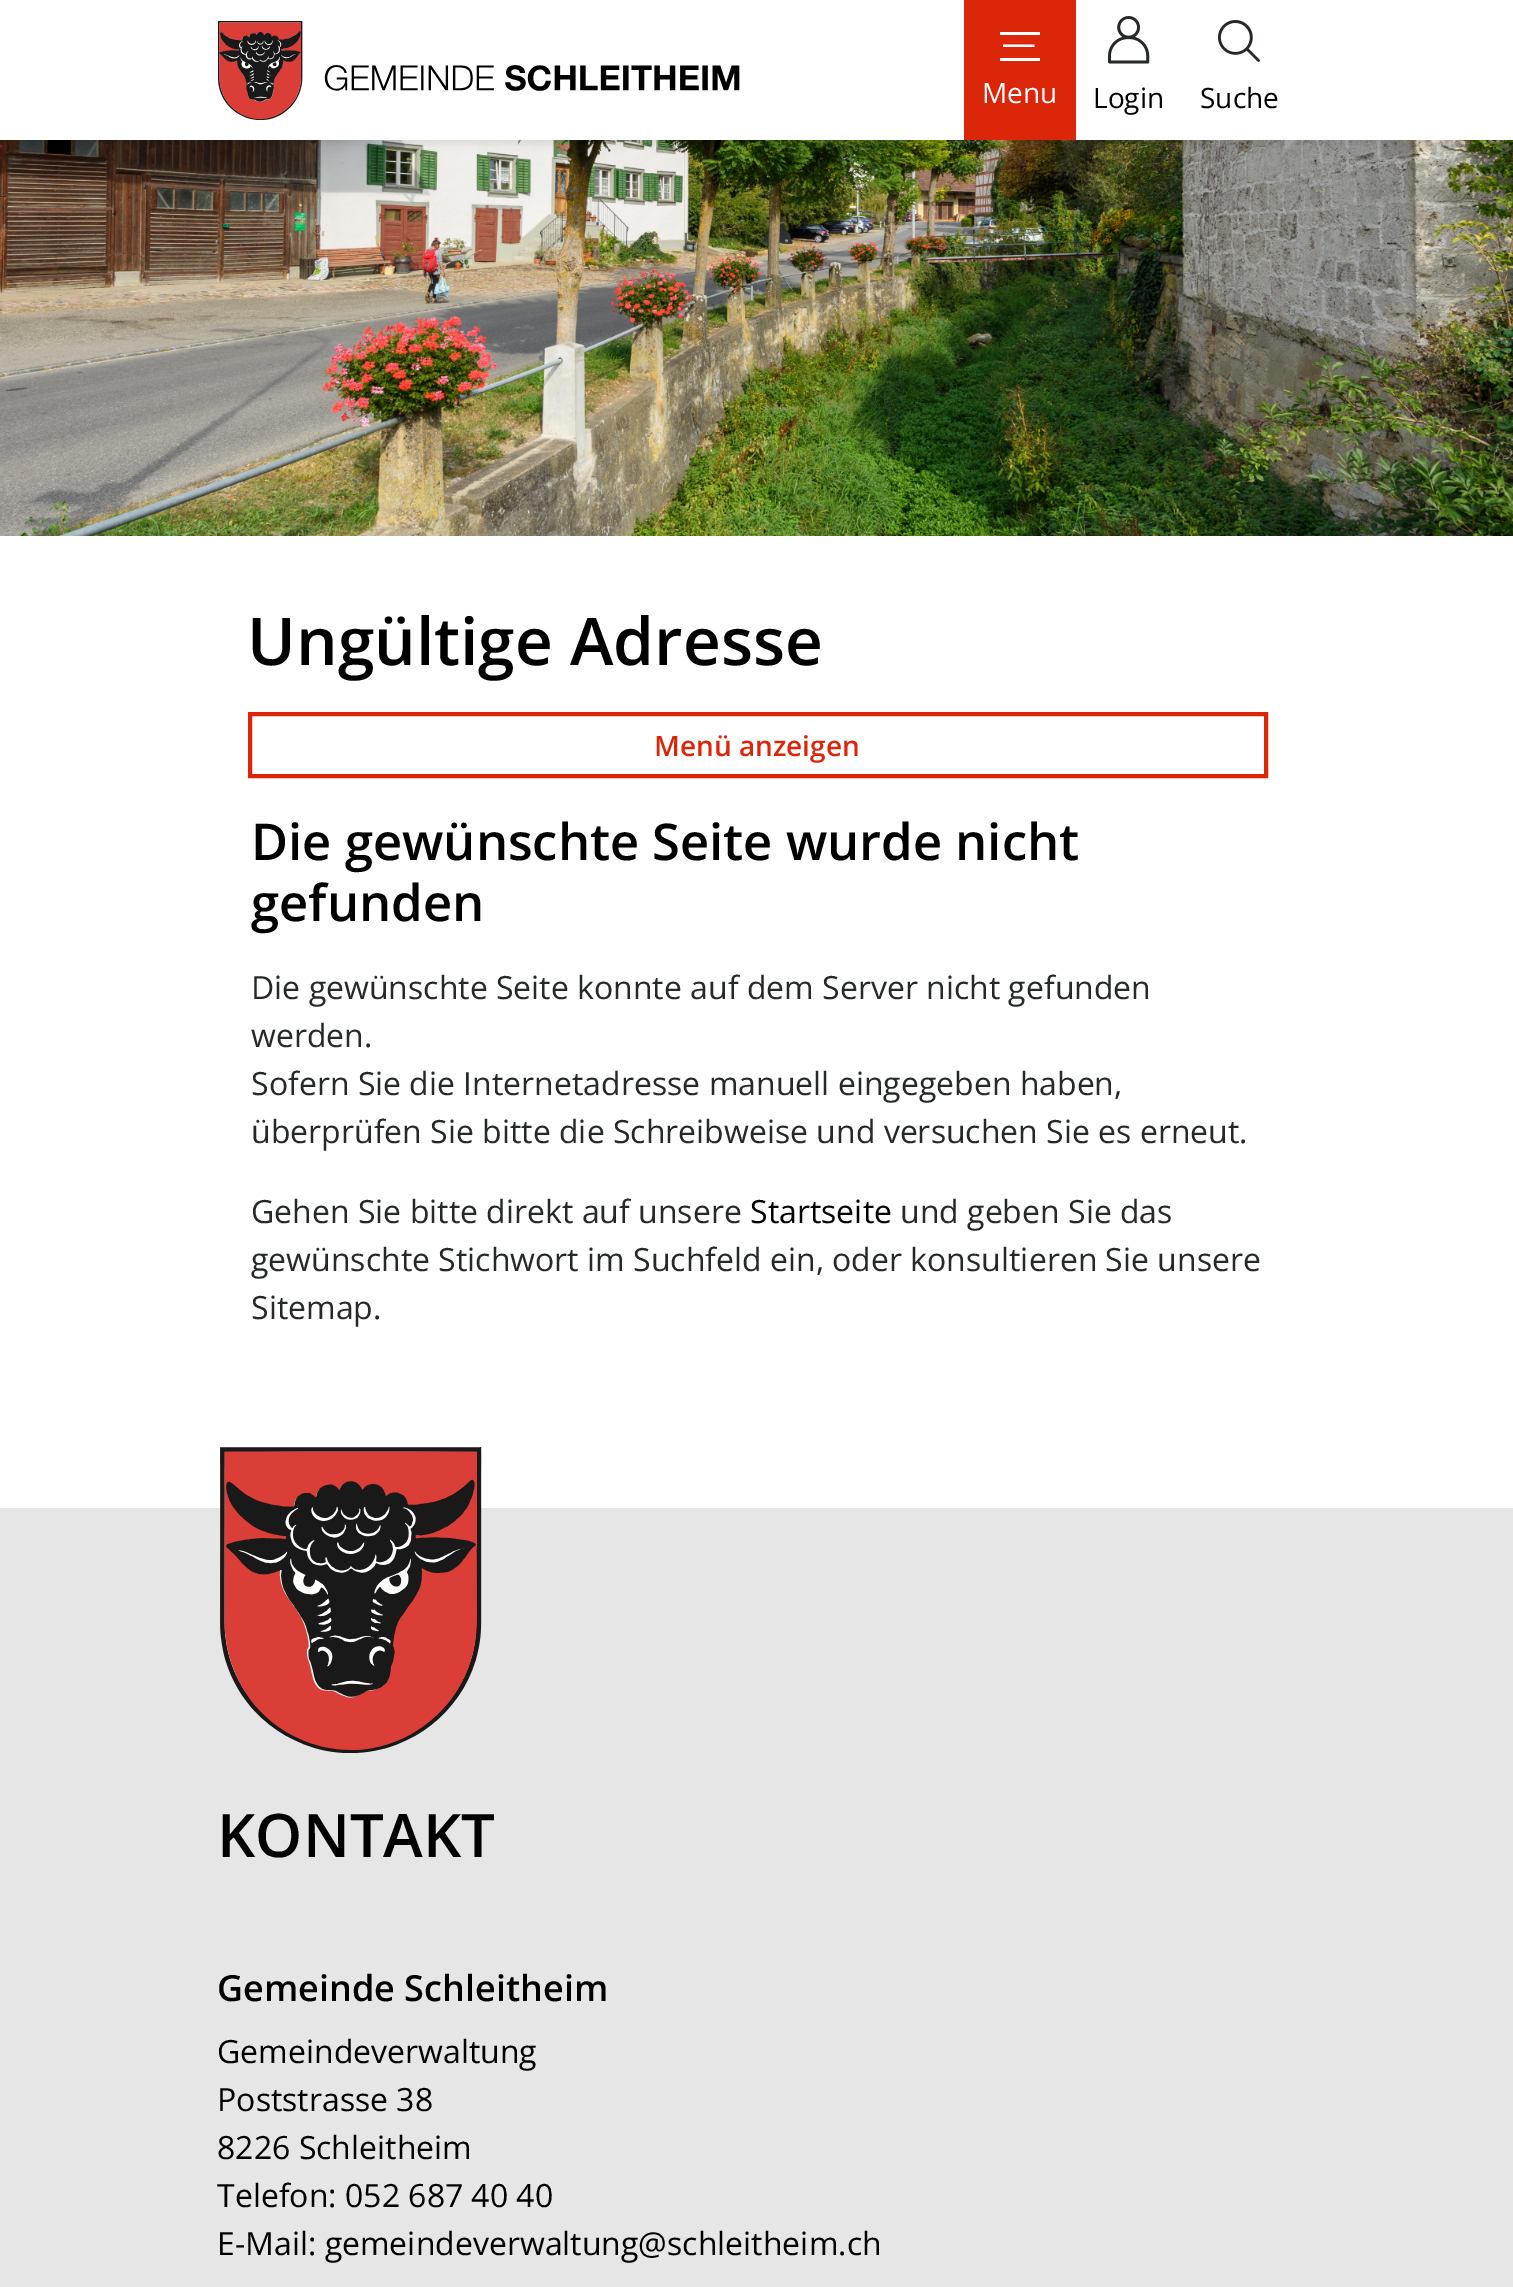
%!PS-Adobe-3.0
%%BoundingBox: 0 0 1513 2287
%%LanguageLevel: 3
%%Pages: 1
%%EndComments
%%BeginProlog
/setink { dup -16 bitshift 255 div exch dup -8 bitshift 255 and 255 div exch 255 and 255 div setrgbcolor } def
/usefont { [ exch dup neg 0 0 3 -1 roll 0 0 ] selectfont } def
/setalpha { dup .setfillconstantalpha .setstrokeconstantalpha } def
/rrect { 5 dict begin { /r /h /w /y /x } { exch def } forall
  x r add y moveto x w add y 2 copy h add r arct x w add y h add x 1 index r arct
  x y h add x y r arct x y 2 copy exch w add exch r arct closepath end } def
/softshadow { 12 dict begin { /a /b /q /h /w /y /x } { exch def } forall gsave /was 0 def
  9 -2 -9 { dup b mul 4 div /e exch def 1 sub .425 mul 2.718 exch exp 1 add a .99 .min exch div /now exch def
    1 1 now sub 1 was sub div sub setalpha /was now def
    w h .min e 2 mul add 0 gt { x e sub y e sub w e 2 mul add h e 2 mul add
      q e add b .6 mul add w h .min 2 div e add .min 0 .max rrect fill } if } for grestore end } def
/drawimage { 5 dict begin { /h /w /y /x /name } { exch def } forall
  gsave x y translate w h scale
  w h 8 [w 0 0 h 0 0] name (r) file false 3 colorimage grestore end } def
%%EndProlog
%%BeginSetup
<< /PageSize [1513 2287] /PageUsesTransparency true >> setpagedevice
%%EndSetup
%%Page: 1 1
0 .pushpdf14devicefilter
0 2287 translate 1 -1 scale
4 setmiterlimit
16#FFFFFF setink
0 0 1513 2287 rectfill
(img4.raw) 0 140 1513 396 drawimage
16#000000 setink
0 4 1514 140 0 4 0.07 softshadow
16#FFFFFF setink
0 0 1513 140 rectfill
(img1.raw) 218 21 522 99 drawimage
16#DC260A setink
964 0 112 140 rectfill
16#FFFFFF setink
1000 32 moveto 1040 32 lineto 1040 35 lineto 1000 35 lineto closepath 1000 58 moveto 1040 58 lineto 1040 61 lineto 1000 61 lineto closepath 1003 44.5 moveto 1034.5 44.5 lineto 1034.5 47 lineto 1003 47 lineto closepath fill
/OpenSans-Regular 28 usefont
982 103 moveto (Menu) show
(img2.raw) 1108 16 42 48 drawimage
16#000000 setink
1093 108 moveto (Login) show
(img3.raw) 1218 20 42 42 drawimage
1200 108 moveto (Suche) show
/OpenSans-SemiBold 65.75 usefont
247 665 moveto (Ungültige Adresse) show
16#DC260A setink
4 setlinewidth
250 714 1016 62 rectstroke
/OpenSans-SemiBold 28 usefont
654 756 moveto (Menü anzeigen) show
/OpenSans-SemiBold 50.7 usefont
16#000000 setink
251 860 moveto (Die gewünschte Seite wurde nicht) show
251 921 moveto (gefunden) show
/OpenSans-Regular 32 usefont
16#26292A setink
[
    [(Die gewünschte Seite konnte auf dem Server nicht gefunden) 251 999]
    [(werden.) 251 1047]
    [(Sofern Sie die Internetadresse manuell eingegeben haben,) 251 1095]
    [(überprüfen Sie bitte die Schreibweise und versuchen Sie es erneut.) 251 1143]
    [(Gehen Sie bitte direkt auf unsere) 251 1223]
] { aload pop moveto show } forall
16#000000 setink
750 1223 moveto (Startseite) show
16#26292A setink
[
    [(und geben Sie das) 900 1223]
    [(gewünschte Stichwort im Suchfeld ein, oder konsultieren Sie unsere) 251 1271]
    [(Sitemap.) 251 1319]
] { aload pop moveto show } forall
16#E6E6E6 setink
0 1508 1513 779 rectfill
(img5.raw) 220 1447 262 306 drawimage
/OpenSans-SemiBold 60 usefont
16#000000 setink
217 1857 moveto (KONTAKT) show
/OpenSans-SemiBold 36 usefont
217 2001 moveto (Gemeinde Schleitheim) show
/OpenSans-Regular 32 usefont
[
    [(Gemeindeverwaltung) 217 2063]
    [(Poststrasse 38) 217 2111]
    [(8226 Schleitheim) 217 2159]
    [(Telefon: 052 687 40 40) 217 2207]
    [(E-Mail: gemeindeverwaltung@schleitheim.ch) 217 2255]
] { aload pop moveto show } forall
.poppdf14devicefilter showpage
%%EOF
